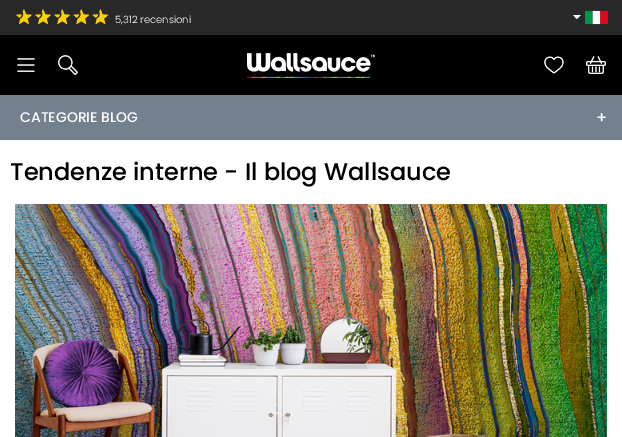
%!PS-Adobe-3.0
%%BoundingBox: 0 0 622 437
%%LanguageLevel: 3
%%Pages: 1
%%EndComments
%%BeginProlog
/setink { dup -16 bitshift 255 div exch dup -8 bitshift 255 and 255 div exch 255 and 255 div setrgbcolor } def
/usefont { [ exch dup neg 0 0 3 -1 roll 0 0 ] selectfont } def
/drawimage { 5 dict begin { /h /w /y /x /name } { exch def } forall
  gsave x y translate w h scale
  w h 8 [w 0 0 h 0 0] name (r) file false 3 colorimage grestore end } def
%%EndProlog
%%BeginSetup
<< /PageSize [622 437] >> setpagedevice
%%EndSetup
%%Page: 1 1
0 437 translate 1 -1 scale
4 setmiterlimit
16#FFFFFF setink
0 0 622 437 rectfill
16#282828 setink
0 0 622 35 rectfill
16#000000 setink
0 35 622 60 rectfill
(img1.raw) 16 9 93 16 drawimage
/Poppins-Light 10 usefont
16#FFFFFF setink
115 23 moveto (5,312 recensioni) show
(img2.raw) 585 10 23 15 drawimage
(img3.raw) 573 15 8 4 drawimage
(img4.raw) 17 58 18 14 drawimage
(img5.raw) 58 55 20 20 drawimage
(img6.raw) 247 53 128 25 drawimage
(img7.raw) 544 56 20 18 drawimage
(img8.raw) 586 56 20 18 drawimage
16#73808E setink
0 95 622 45 rectfill
/Poppins-Medium 14 usefont
16#FFFFFF setink
20 122 moveto (CATEGORIE BLOG) show
/Poppins-Medium 16 usefont
596 123 moveto (+) show
/Poppins-Medium 24 usefont
16#000000 setink
10 180 moveto (Tendenze interne - Il blog Wallsauce) show
(img9.raw) 15 204 592 233 drawimage
showpage
%%EOF
